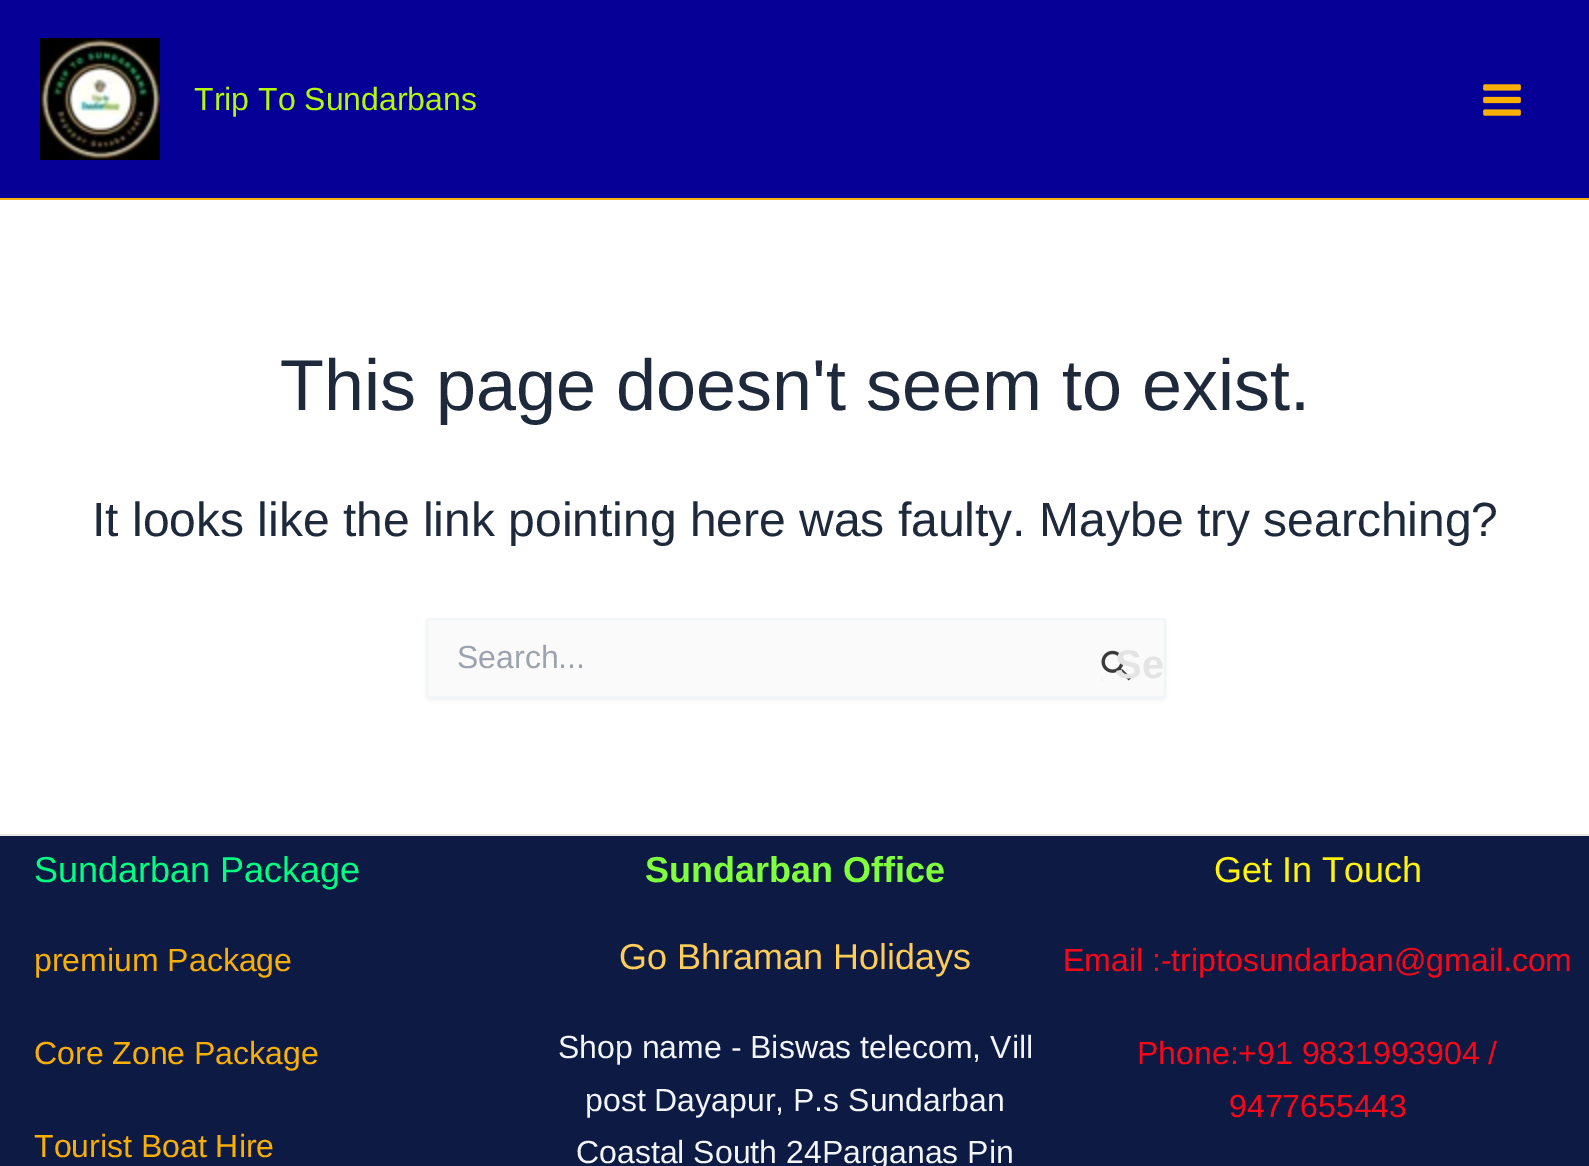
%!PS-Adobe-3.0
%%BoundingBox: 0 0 1589 1166
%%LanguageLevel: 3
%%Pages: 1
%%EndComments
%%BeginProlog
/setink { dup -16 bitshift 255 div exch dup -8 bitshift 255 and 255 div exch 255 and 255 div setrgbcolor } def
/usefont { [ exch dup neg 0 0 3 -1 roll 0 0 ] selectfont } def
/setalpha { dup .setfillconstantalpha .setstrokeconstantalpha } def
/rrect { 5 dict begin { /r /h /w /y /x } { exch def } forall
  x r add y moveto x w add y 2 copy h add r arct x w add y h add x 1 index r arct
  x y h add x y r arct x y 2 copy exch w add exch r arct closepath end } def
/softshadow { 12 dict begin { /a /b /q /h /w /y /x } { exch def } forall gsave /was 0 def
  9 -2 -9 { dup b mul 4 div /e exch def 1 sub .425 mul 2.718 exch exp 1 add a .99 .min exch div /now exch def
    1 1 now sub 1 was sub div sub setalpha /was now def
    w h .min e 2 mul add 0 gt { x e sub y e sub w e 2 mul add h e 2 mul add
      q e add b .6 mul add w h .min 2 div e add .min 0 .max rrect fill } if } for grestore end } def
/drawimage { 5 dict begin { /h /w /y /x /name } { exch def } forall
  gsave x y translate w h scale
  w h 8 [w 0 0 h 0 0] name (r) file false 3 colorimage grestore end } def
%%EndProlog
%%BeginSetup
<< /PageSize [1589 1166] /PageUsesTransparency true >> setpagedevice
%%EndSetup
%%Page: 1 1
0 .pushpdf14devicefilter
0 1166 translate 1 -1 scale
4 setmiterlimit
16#FFFFFF setink
0 0 1589 1166 rectfill
16#060097 setink
0 0 1589 198 rectfill
16#F9B411 setink
0 198 1589 2 rectfill
(img1.raw) 40 38 120 122 drawimage
/LiberationSans-Regular 32 usefont
16#B3F806 setink
194 110 moveto (Trip To Sundarbans) show
(img2.raw) 1483 84 38 32 drawimage
/LiberationSans-Regular 72 usefont
16#1E293B setink
280 410 moveto (This page doesn't seem to exist.) show
/LiberationSans-Regular 48 usefont
92 536 moveto (It looks like the link pointing here was faulty. Maybe try searching?) show
16#000000 setink
426 620 740 80 4 2 0.05 softshadow
16#FAFAFA setink
427 619 738 78 3 rrect gsave fill grestore
16#F2F5F7 setink
2 setlinewidth
stroke
/LiberationSans-Regular 32 usefont
16#9CA3AF setink
457 668 moveto (Search...) show
(img3.raw) 1101 650 31 31 drawimage
/LiberationSans-Bold 40 usefont
16#E4E4E4 setink
1115 678 moveto (Se) show
16#0D1A43 setink
0 836 1589 330 rectfill
16#E6E6E6 setink
0 834 1589 2 rectfill
/LiberationSans-Regular 36 usefont
16#00FF80 setink
34 882 moveto (Sundarban Package) show
/LiberationSans-Regular 32 usefont
16#FAB002 setink
[
    [(premium Package) 34 971]
    [(Core Zone Package) 34 1064]
    [(Tourist Boat Hire) 34 1157]
] { aload pop moveto show } forall
/LiberationSans-Bold 36 usefont
16#80FF3C setink
645 882 moveto (Sundarban Office) show
/LiberationSans-Regular 36 usefont
16#FFCD57 setink
619 969 moveto (Go Bhraman Holidays) show
/LiberationSans-Regular 32 usefont
16#F2F5F7 setink
[
    [(Shop name - Biswas telecom, Vill) 558 1058]
    [(post Dayapur, P.s Sundarban) 585 1111]
    [(Coastal South 24Parganas Pin) 576 1163]
] { aload pop moveto show } forall
/LiberationSans-Regular 36 usefont
16#FFF308 setink
1214 882 moveto (Get In Touch) show
/LiberationSans-Regular 32 usefont
16#F70717 setink
[
    [(Email :-triptosundarban@gmail.com) 1063 971]
    [(Phone:+91 9831993904 /) 1137 1064]
    [(9477655443) 1229 1117]
] { aload pop moveto show } forall
.poppdf14devicefilter showpage
%%EOF
